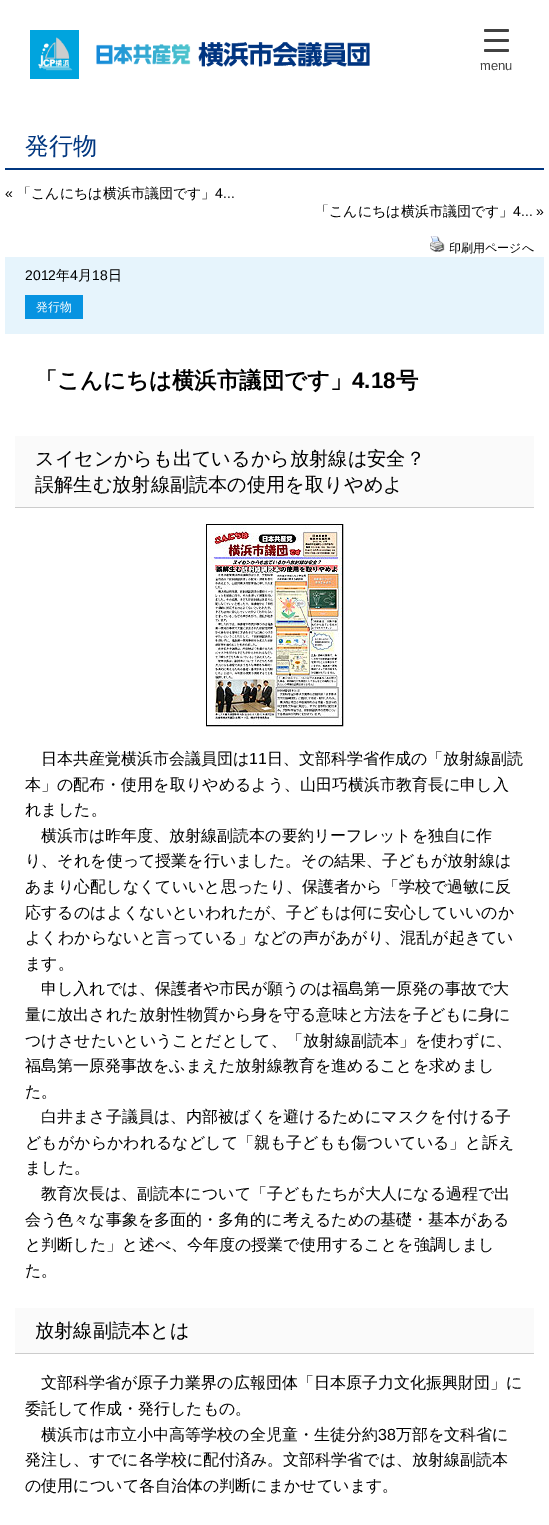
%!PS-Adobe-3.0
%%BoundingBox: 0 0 549 1525
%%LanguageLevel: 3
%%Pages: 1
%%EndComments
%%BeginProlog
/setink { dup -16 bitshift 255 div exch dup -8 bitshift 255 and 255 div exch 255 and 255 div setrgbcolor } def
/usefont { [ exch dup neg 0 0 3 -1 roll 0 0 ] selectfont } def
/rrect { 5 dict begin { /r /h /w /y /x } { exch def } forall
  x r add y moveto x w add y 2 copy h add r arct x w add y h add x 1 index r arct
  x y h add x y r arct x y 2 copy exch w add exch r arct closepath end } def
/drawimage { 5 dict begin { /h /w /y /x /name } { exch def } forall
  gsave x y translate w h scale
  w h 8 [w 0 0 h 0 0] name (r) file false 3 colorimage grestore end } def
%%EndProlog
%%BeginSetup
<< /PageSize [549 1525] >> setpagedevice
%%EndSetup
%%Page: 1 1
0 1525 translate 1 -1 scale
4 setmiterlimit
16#FFFFFF setink
0 0 549 1525 rectfill
(img1.raw) 30 30 340 49 drawimage
16#424242 setink
484 39 25 3 1.5 rrect fill
484 29 25 3 1.5 rrect fill
484 49 25 3 1.5 rrect fill
/LiberationSans-Regular 13 usefont
480 70 moveto (menu) show
16#013780 setink
5 168 539 2 rectfill
/WenQuanYiZenHei-Medium 24 usefont
25 154 moveto (発行物) show
/LiberationSans-Regular 14 usefont
16#000000 setink
5 198 moveto («) show
/WenQuanYiZenHei-Medium 14 usefont
17 198 moveto (「こんにちは横浜市議団です」) show
/LiberationSans-Regular 14 usefont
215 198 moveto (4...) show
/WenQuanYiZenHei-Medium 14 usefont
315 216 moveto (「こんにちは横浜市議団です」) show
/LiberationSans-Regular 14 usefont
513 216 moveto (4... ») show
(img2.raw) 430 236 15 16 drawimage
/WenQuanYiZenHei-Medium 12 usefont
449 252 moveto (印刷用ページへ) show
16#E6F4FC setink
5 257 539 77 rectfill
/LiberationSans-Regular 14 usefont
16#000000 setink
25 280 moveto (2012) show
/WenQuanYiZenHei-Medium 14 usefont
56 280 moveto (年) show
/LiberationSans-Regular 14 usefont
70 280 moveto (4) show
/WenQuanYiZenHei-Medium 14 usefont
78 280 moveto (月) show
/LiberationSans-Regular 14 usefont
92 280 moveto (18) show
/WenQuanYiZenHei-Medium 14 usefont
108 280 moveto (日) show
16#0693E1 setink
25 295 58 24 rectfill
/WenQuanYiZenHei-Medium 12 usefont
16#FFFFFF setink
36 311 moveto (発行物) show
/WenQuanYiZenHei-Bold 22.4 usefont
16#000000 setink
35 388 moveto (「こんにちは横浜市議団です」) show
/LiberationSans-Bold 22.4 usefont
352 388 moveto (4.18) show
/WenQuanYiZenHei-Bold 22.4 usefont
396 388 moveto (号) show
16#FAFAFA setink
15 436 519 71 rectfill
16#CCCCCC setink
15 507 519 1 rectfill
/WenQuanYiZenHei-Medium 19.2 usefont
16#000000 setink
35 465 moveto (スイセンからも出ているから放射線は安全？) show
35 491 moveto (誤解生む放射線副読本の使用を取りやめよ) show
206.5 524.5 136 201 rectstroke
(img3.raw) 207 525 135 200 drawimage
/WenQuanYiZenHei-Medium 16 usefont
41 764 moveto (日本共産覚横浜市会議員団は) show
/LiberationSans-Regular 16 usefont
249 764 moveto (11) show
/WenQuanYiZenHei-Medium 16 usefont
[
    [(日、文部科学省作成の「放射線副読) 267 764]
    [(本」の配布・使用を取りやめるよう、山田巧横浜市教育長に申し入) 25 790]
    [(れました。) 25 815]
    [(横浜市は昨年度、放射線副読本の要約リーフレットを独自に作) 41 841]
    [(り、それを使って授業を行いました。その結果、子どもが放射線は) 25 866]
    [(あまり心配しなくていいと思ったり、保護者から「学校で過敏に反) 25 892]
    [(応するのはよくないといわれたが、子どもは何に安心していいのか) 25 918]
    [(よくわからないと言っている」などの声があがり、混乱が起きてい) 25 943]
    [(ます。) 25 969]
    [(申し入れでは、保護者や市民が願うのは福島第一原発の事故で大) 41 994]
    [(量に放出された放射性物質から身を守る意味と方法を子どもに身に) 25 1020]
    [(つけさせたいということだとして、「放射線副読本」を使わずに、) 25 1046]
    [(福島第一原発事故をふまえた放射線教育を進めることを求めまし) 25 1071]
    [(た。) 25 1097]
    [(白井まさ子議員は、内部被ばくを避けるためにマスクを付ける子) 41 1122]
    [(どもがからかわれるなどして「親も子どもも傷ついている」と訴え) 25 1148]
    [(ました。) 25 1173]
    [(教育次長は、副読本について「子どもたちが大人になる過程で出) 41 1199]
    [(会う色々な事象を多面的・多角的に考えるための基礎・基本がある) 25 1225]
    [(と判断した」と述べ、今年度の授業で使用することを強調しまし) 25 1250]
    [(た。) 25 1276]
] { aload pop moveto show } forall
16#FAFAFA setink
15 1308 519 45 rectfill
16#CCCCCC setink
15 1353 519 1 rectfill
/WenQuanYiZenHei-Medium 19.2 usefont
16#000000 setink
35 1337 moveto (放射線副読本とは) show
/WenQuanYiZenHei-Medium 16 usefont
[
    [(文部科学省が原子力業界の広報団体「日本原子力文化振興財団」に) 41 1388]
    [(委託して作成・発行したもの。) 25 1414]
    [(横浜市は市立小中高等学校の全児童・生徒分約) 41 1440]
] { aload pop moveto show } forall
/LiberationSans-Regular 16 usefont
378 1440 moveto (38) show
/WenQuanYiZenHei-Medium 16 usefont
[
    [(万部を文科省に) 396 1440]
    [(発注し、すでに各学校に配付済み。文部科学省では、放射線副読本) 25 1465]
    [(の使用について各自治体の判断にまかせています。) 25 1491]
] { aload pop moveto show } forall
showpage
%%EOF
